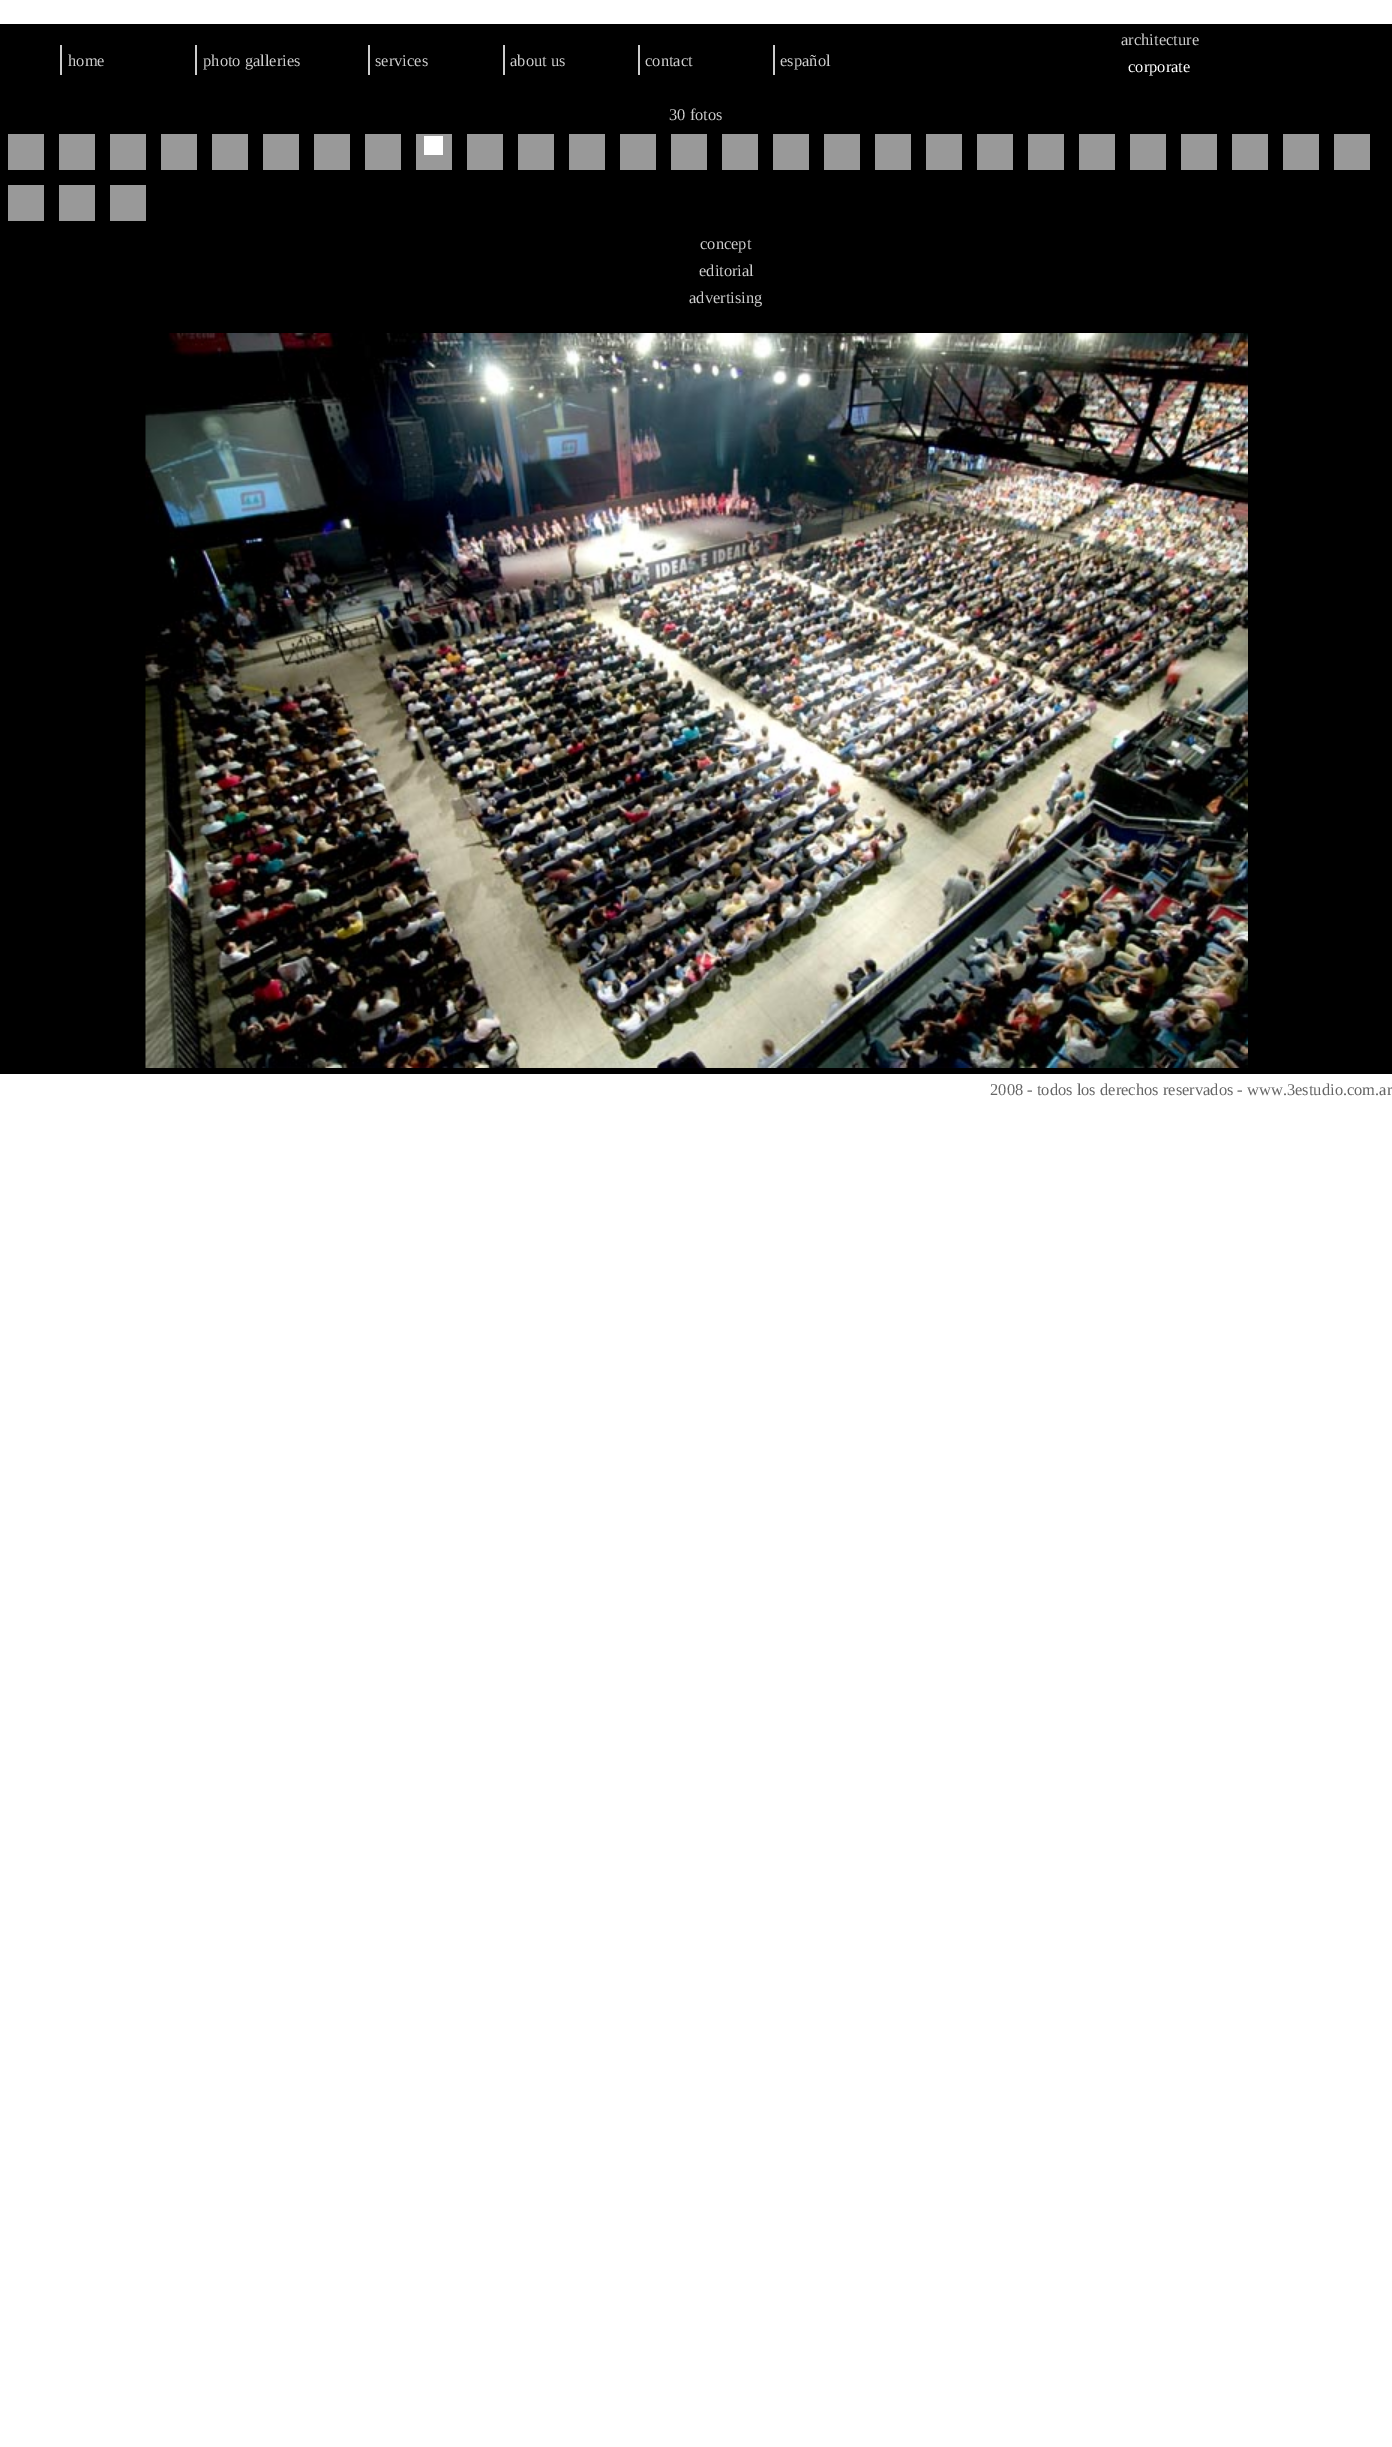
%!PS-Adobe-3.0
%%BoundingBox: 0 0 1392 2447
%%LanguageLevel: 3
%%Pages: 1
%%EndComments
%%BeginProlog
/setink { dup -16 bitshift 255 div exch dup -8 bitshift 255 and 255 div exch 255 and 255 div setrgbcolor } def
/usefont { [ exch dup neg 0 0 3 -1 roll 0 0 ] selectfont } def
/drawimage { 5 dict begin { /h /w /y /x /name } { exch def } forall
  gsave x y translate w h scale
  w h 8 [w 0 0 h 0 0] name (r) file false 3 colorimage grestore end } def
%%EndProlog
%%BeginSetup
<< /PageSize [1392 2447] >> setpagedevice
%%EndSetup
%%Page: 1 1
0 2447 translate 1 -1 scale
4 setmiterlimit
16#FFFFFF setink
0 0 1392 2447 rectfill
16#000000 setink
0 24 1392 1050 rectfill
16#CCCCCC setink
60 45 2 30 rectfill
/LiberationSerif-Regular 16.5 usefont
68 66 moveto (home) show
195 45 2 30 rectfill
203 66 moveto (photo galleries) show
368 45 2 30 rectfill
375 66 moveto (services) show
503 45 2 30 rectfill
510 66 moveto (about us) show
638 45 2 30 rectfill
645 66 moveto (contact) show
773 45 2 30 rectfill
780 66 moveto (español) show
1121 45 moveto (architecture) show
16#FFFFFF setink
1128 72 moveto (corporate) show
16#CCCCCC setink
[
    [(concept) 700 249]
    [(editorial) 699 276]
    [(advertising) 689 303]
    [(30 fotos) 669 120]
] { aload pop moveto show } forall
[
    [8 134 36 36 16#999999]
    [59 134 36 36 16#999999]
    [110 134 36 36 16#999999]
    [161 134 36 36 16#999999]
    [212 134 36 36 16#999999]
    [263 134 36 36 16#999999]
    [314 134 36 36 16#999999]
    [365 134 36 36 16#999999]
    [416 134 36 36 16#999999]
    [424 136 19 19 16#FFFFFF]
    [467 134 36 36 16#999999]
    [518 134 36 36 16#999999]
    [569 134 36 36 16#999999]
    [620 134 36 36 16#999999]
    [671 134 36 36 16#999999]
    [722 134 36 36 16#999999]
    [773 134 36 36 16#999999]
    [824 134 36 36 16#999999]
    [875 134 36 36 16#999999]
    [926 134 36 36 16#999999]
    [977 134 36 36 16#999999]
    [1028 134 36 36 16#999999]
    [1079 134 36 36 16#999999]
    [1130 134 36 36 16#999999]
    [1181 134 36 36 16#999999]
    [1232 134 36 36 16#999999]
    [1283 134 36 36 16#999999]
    [1334 134 36 36 16#999999]
    [8 185 36 36 16#999999]
    [59 185 36 36 16#999999]
    [110 185 36 36 16#999999]
] { aload pop setink rectfill } forall
(img1.raw) 145 333 1103 735 drawimage
16#666666 setink
990 1095 moveto (2008 - todos los derechos reservados - www.3estudio.com.ar) show
showpage
%%EOF
